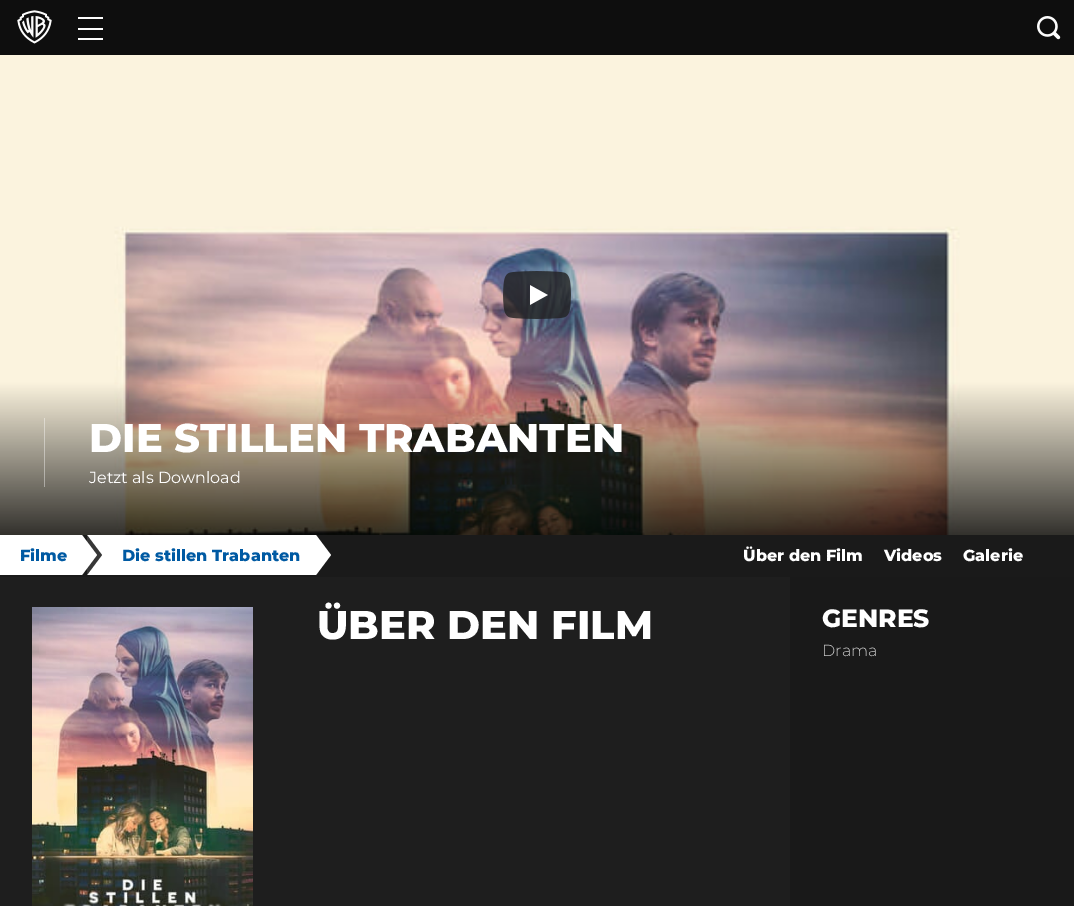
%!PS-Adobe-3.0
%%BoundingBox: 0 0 1074 906
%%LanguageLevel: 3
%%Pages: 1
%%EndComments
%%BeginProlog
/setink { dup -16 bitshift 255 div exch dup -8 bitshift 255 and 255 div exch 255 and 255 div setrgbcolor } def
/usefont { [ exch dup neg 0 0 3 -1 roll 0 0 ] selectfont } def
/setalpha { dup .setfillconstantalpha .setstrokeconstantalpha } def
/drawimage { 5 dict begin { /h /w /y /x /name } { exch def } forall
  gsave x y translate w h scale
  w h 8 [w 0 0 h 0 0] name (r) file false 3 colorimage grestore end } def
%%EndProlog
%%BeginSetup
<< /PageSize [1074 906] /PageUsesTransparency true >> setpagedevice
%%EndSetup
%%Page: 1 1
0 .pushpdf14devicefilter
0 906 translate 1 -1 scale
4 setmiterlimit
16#0E0E0E setink
0 0 1074 906 rectfill
(img1.raw) 17 10 35 34 drawimage
[
    [78 17 25 2 16#FDFDFD]
    [78 28 25 2 16#FDFDFD]
    [78 38 25 2 16#FDFDFD]
] { aload pop setink rectfill } forall
(img2.raw) 1037 16 24 24 drawimage
(img3.raw) 0 55 1074 480 drawimage
(img4.raw) 503 271 68 48 drawimage
0.4 setalpha
16#FFFFFF setink
44 418 1 69 rectfill
/Montserrat-ExtraBold 40 usefont
1 setalpha
89 452 moveto (DIE STILLEN TRABANTEN) show
/Montserrat-Regular 16 usefont
89 483 moveto (Jetzt als Download) show
16#1A1A1A setink
0 535 1074 42 rectfill
16#FFFFFF setink
0 535 82 40 rectfill
/Montserrat-ExtraBold 16 usefont
16#005AA3 setink
20 561 moveto (Filme) show
16#FFFFFF setink
87 535 229 40 rectfill
16#373737 setink
87 575 moveto 87 535 lineto 102 555 lineto closepath fill
16#FFFFFF setink
82 575 moveto 82 535 lineto 97 555 lineto closepath fill
16#005AA3 setink
122 561 moveto (Die stillen Trabanten) show
16#FFFFFF setink
316 575 moveto 316 535 lineto 331 555 lineto closepath fill
[
    [(Über den Film) 743 561]
    [(Videos) 884 561]
    [(Galerie) 963 561]
] { aload pop moveto show } forall
16#1E1E1E setink
0 577 790 329 rectfill
(img5.raw) 32 607 221 299 drawimage
/Montserrat-ExtraBold 40 usefont
16#FFFFFF setink
317 639 moveto (ÜBER DEN FILM) show
16#191919 setink
790 577 284 329 rectfill
/Montserrat-ExtraBold 25 usefont
16#FFFFFF setink
822 627 moveto (GENRES) show
/Montserrat-Light 16 usefont
16#C6C6C6 setink
822 656 moveto (Drama) show
.poppdf14devicefilter showpage
%%EOF
